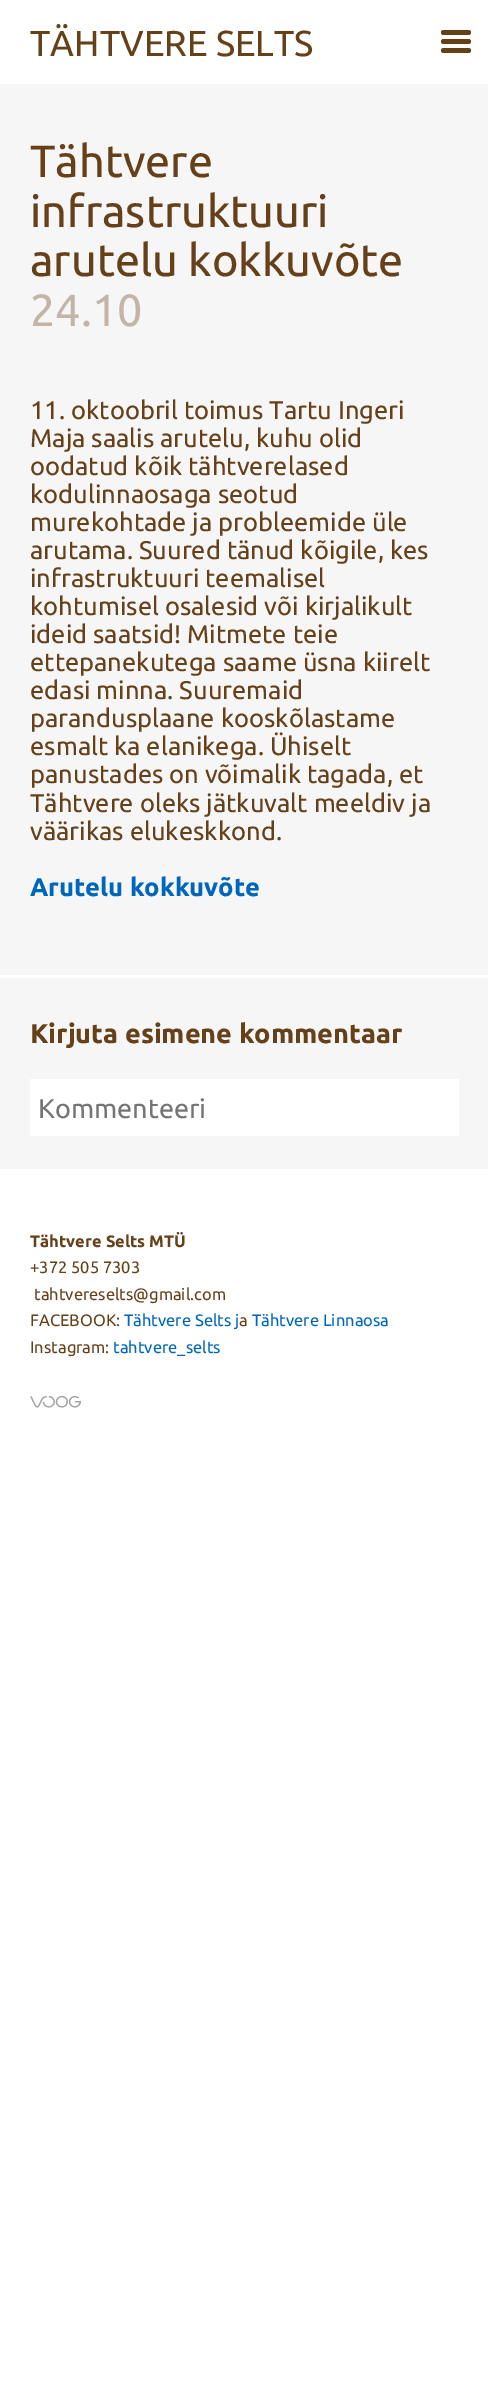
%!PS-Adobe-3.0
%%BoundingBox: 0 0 488 2397
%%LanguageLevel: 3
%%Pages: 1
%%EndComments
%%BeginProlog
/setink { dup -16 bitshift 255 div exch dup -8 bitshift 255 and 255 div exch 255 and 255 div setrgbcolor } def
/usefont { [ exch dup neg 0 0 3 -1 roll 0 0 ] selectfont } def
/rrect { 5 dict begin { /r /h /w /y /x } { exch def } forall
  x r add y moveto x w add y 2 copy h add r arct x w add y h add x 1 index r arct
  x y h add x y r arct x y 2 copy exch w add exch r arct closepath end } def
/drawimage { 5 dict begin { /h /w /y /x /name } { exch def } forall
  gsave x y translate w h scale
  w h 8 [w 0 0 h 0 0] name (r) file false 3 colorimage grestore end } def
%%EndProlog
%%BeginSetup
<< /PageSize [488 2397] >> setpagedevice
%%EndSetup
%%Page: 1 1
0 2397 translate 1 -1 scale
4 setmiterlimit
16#FFFFFF setink
0 0 488 2397 rectfill
/Ubuntu-Regular 36 usefont
16#664019 setink
30 56 moveto (TÄHTVERE SELTS) show
441 30 30 5 2.5 rrect fill
441 39 30 5 2.5 rrect fill
441 48 30 5 2.5 rrect fill
16#F6F6F6 setink
0 84 488 1085 rectfill
/Ubuntu-Regular 45 usefont
16#664019 setink
[
    [(Tähtvere) 30 177]
    [(infrastruktuuri) 30 227]
    [(arutelu kokkuvõte) 30 276]
] { aload pop moveto show } forall
16#C2B4A6 setink
30 326 moveto (24.10) show
/Ubuntu-Regular 25.5 usefont
16#664019 setink
[
    [(11. oktoobril toimus Tartu Ingeri) 30 419]
    [(Maja saalis arutelu, kuhu olid) 30 447]
    [(oodatud kõik tähtverelased) 30 475]
    [(kodulinnaosaga seotud) 30 503]
    [(murekohtade ja probleemide üle) 30 531]
    [(arutama. Suured tänud kõigile, kes) 30 559]
    [(infrastruktuuri teemalisel) 30 587]
    [(kohtumisel osalesid või kirjalikult) 30 615]
    [(ideid saatsid! Mitmete teie) 30 643]
    [(ettepanekutega saame üsna kiirelt) 30 671]
    [(edasi minna. Suuremaid) 30 699]
    [(parandusplaane kooskõlastame) 30 727]
    [(esmalt ka elanikega. Ühiselt) 30 755]
    [(panustades on võimalik tagada, et) 30 783]
    [(Tähtvere oleks jätkuvalt meeldiv ja) 30 812]
    [(väärikas elukeskkond.) 30 840]
] { aload pop moveto show } forall
/Ubuntu-Bold 25.5 usefont
16#0066BB setink
30 896 moveto (Arutelu kokkuvõte) show
16#FFFFFF setink
0 975 488 3 rectfill
/Ubuntu-Bold 27 usefont
16#664019 setink
30 1043 moveto (Kirjuta esimene kommentaar) show
16#FFFFFF setink
30 1079 429 57 rectfill
/Ubuntu-Regular 27 usefont
16#757575 setink
38 1118 moveto (Kommenteeri) show
/Ubuntu-Bold 16.5 usefont
16#664019 setink
30 1247 moveto (Tähtvere Selts MTÜ) show
/Ubuntu-Regular 16.5 usefont
[
    [(+372 505 7303) 30 1273]
    [(tahtvereselts@gmail.com) 34 1300]
    [(FACEBOOK:) 30 1326]
] { aload pop moveto show } forall
16#0066BB setink
124 1326 moveto (Tähtvere Selts j) show
16#664019 setink
239 1326 moveto (a) show
16#0066BB setink
252 1326 moveto (Tähtvere Linnaosa) show
16#664019 setink
30 1353 moveto (Instagram:) show
16#0066BB setink
113 1353 moveto (tahtvere_selts) show
(img1.raw) 30 1396 51 12 drawimage
showpage
%%EOF
